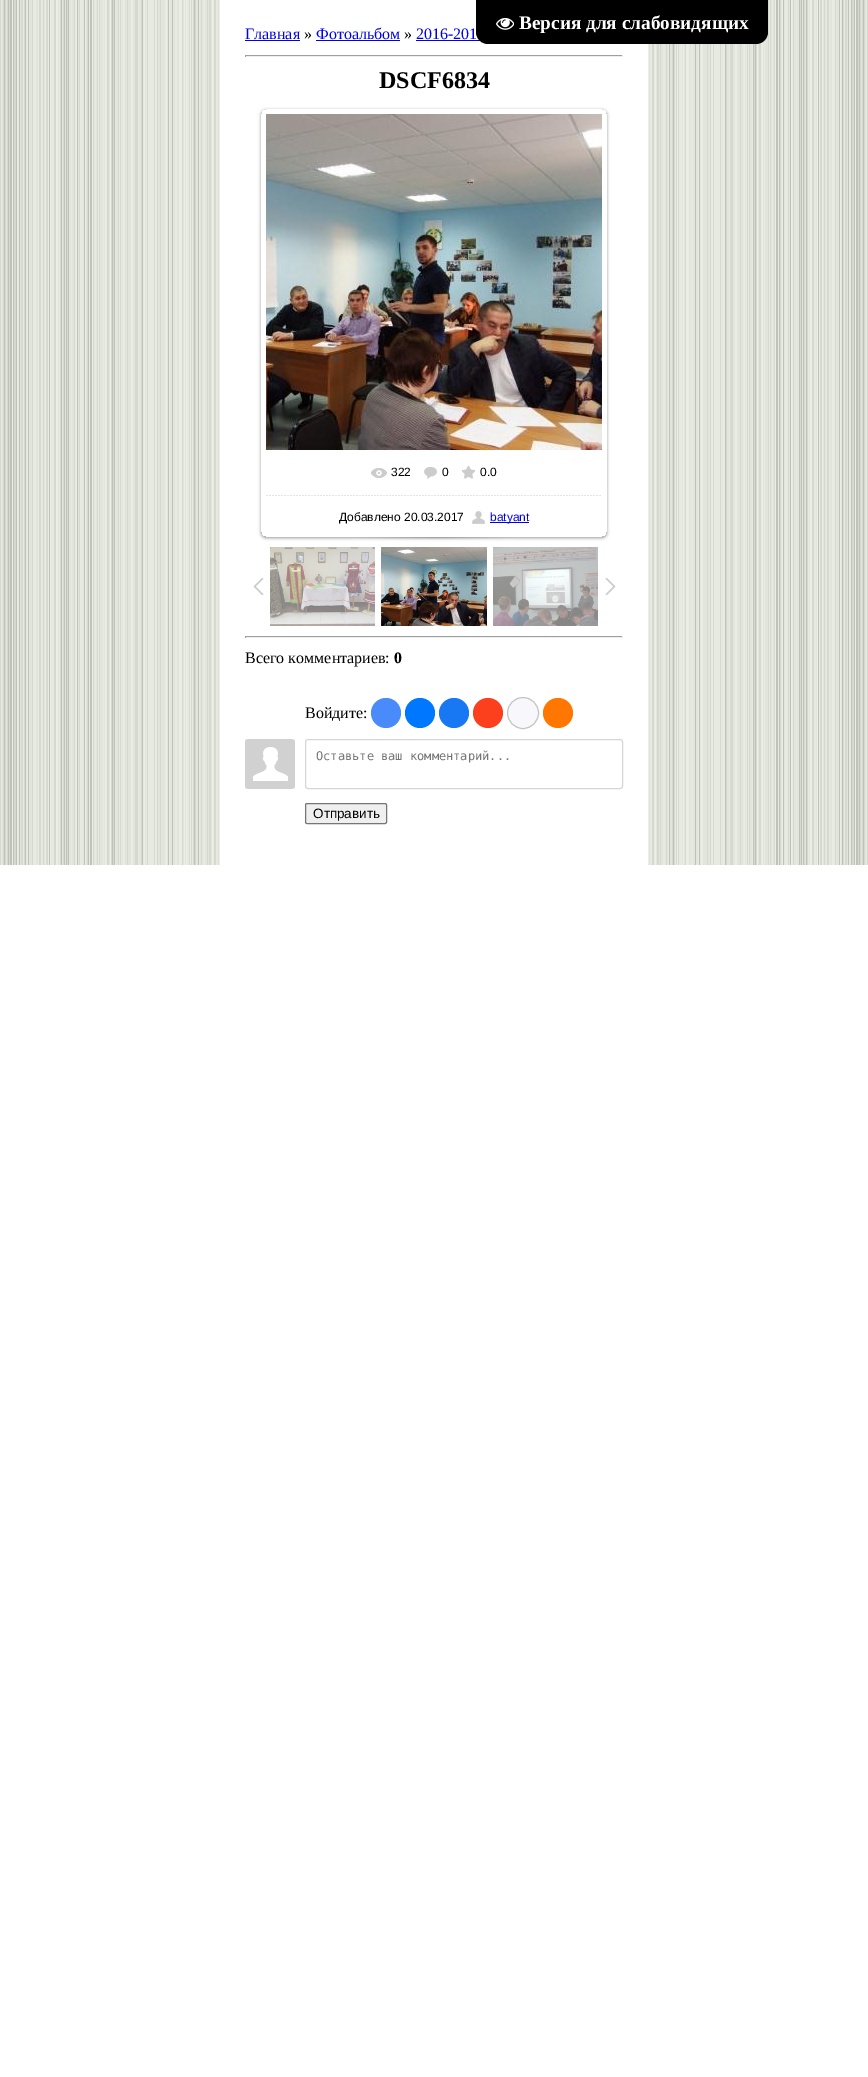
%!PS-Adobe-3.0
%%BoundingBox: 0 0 868 2077
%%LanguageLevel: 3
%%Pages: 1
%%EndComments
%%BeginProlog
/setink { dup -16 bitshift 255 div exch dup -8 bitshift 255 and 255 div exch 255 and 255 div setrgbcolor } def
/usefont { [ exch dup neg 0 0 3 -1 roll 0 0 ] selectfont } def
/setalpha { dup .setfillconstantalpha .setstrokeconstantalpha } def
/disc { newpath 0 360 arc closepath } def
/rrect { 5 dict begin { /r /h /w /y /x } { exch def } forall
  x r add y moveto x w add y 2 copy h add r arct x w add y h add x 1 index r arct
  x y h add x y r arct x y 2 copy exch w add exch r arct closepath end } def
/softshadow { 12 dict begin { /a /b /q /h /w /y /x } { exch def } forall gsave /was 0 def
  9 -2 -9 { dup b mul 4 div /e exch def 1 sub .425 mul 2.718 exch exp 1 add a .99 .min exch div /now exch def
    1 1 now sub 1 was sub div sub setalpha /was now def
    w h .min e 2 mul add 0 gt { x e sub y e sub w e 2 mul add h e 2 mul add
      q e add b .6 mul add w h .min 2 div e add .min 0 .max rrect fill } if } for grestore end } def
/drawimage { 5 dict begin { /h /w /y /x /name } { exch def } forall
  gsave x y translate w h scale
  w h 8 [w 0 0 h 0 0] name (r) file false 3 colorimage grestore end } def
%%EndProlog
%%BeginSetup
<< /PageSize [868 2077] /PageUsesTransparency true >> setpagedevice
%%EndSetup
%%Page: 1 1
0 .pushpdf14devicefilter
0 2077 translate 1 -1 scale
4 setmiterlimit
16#FFFFFF setink
0 0 868 2077 rectfill
/LiberationSerif-Regular 16 usefont
16#0000EE setink
416 39 moveto (2016-201) show
416 40 70 1 rectfill
(img16.raw) 648 0 220 865 drawimage
16#000000 setink
476 0 moveto 768 0 lineto 768 32 lineto 768 38.5 762.5 44 756 44 curveto 488 44 lineto 481.5 44 476 38.5 476 32 curveto closepath fill
(img1.raw) 496 17 18 13 drawimage
/LiberationSerif-Bold 19.25 usefont
16#FFFFFF setink
519 29 moveto (Версия для слабовидящих) show
(img2.raw) 0 0 220 865 drawimage
/LiberationSerif-Regular 16 usefont
16#0000EE setink
245 39 moveto (Главная) show
245 40 55 1 rectfill
16#000000 setink
304 39 moveto (») show
16#0000EE setink
316 39 moveto (Фотоальбом) show
316 40 84 1 rectfill
16#000000 setink
404 39 moveto (») show
[
    [245 55 378 1 16#9F9F9F]
    [622 55 1 2 16#EEEEEE]
    [245 56 378 1 16#EEEEEE]
    [245 55 1 2 16#9F9F9F]
] { aload pop setink rectfill } forall
/LiberationSerif-Bold 24 usefont
16#000000 setink
379 88 moveto (DSCF6834) show
gsave
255 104 moveto 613 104 lineto 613 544 lineto 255 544 lineto closepath 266 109 moveto 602 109 lineto 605 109 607 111 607 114 curveto 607 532 lineto 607 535 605 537 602 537 curveto 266 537 lineto 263 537 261 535 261 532 curveto 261 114 lineto 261 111 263 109 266 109 curveto closepath eoclip newpath
261 110 346 428 5 1.5 0.37 softshadow
grestore
(img3.raw) 266 114 336 336 drawimage
(img4.raw) 371 468 16 10 drawimage
/LiberationSans-Regular 12 usefont
391 476 moveto (322) show
(img5.raw) 424 467 13 12 drawimage
442 476 moveto (0) show
(img6.raw) 462 466 13 13 drawimage
480 476 moveto (0.0) show
(img7.raw) 266 495 335 1 drawimage
339 521 moveto (Добавлено 20.03.2017) show
(img8.raw) 472 511 13 13 drawimage
16#0000EE setink
490 522 39 1 rectfill
490 521 moveto (batyant) show
(img9.raw) 354 537 161 3 drawimage
(img10.raw) 253 578 11 17 drawimage
(img11.raw) 270 547 105 79 drawimage
(img12.raw) 381 547 106 79 drawimage
(img13.raw) 493 547 105 79 drawimage
(img14.raw) 605 578 11 17 drawimage
[
    [245 636 378 1 16#9F9F9F]
    [622 636 1 2 16#EEEEEE]
    [245 637 378 1 16#EEEEEE]
    [245 636 1 2 16#9F9F9F]
] { aload pop setink rectfill } forall
/LiberationSerif-Regular 16 usefont
16#000000 setink
245 663 moveto (Всего комментариев:) show
/LiberationSerif-Bold 16 usefont
394 663 moveto (0) show
/LiberationSerif-Regular 16 usefont
305 718 moveto (Войдите:) show
16#498BFA setink
386 713 15 disc fill
16#0077FF setink
420 713 15 disc fill
16#1877F2 setink
454 713 15 disc fill
16#FC3F1D setink
488 713 15 disc fill
16#F8F8FC setink
523 713 15.5 disc gsave fill grestore
16#C4C4C4 setink
stroke
16#FF7700 setink
558 713 15 disc fill
(img15.raw) 245 739 50 50 drawimage
16#D6D6D6 setink
305.5 739.5 317 49 2.5 rrect stroke
/DejaVuSansMono-Regular 12 usefont
16#757575 setink
316 760 moveto (Оставьте ваш комментарий...) show
16#EFEFEF setink
305.5 803.5 81 20 1.5 rrect gsave fill grestore
16#767676 setink
stroke
/LiberationSans-Regular 13.5 usefont
16#000000 setink
313 818 moveto (Отправить) show
.poppdf14devicefilter showpage
%%EOF
